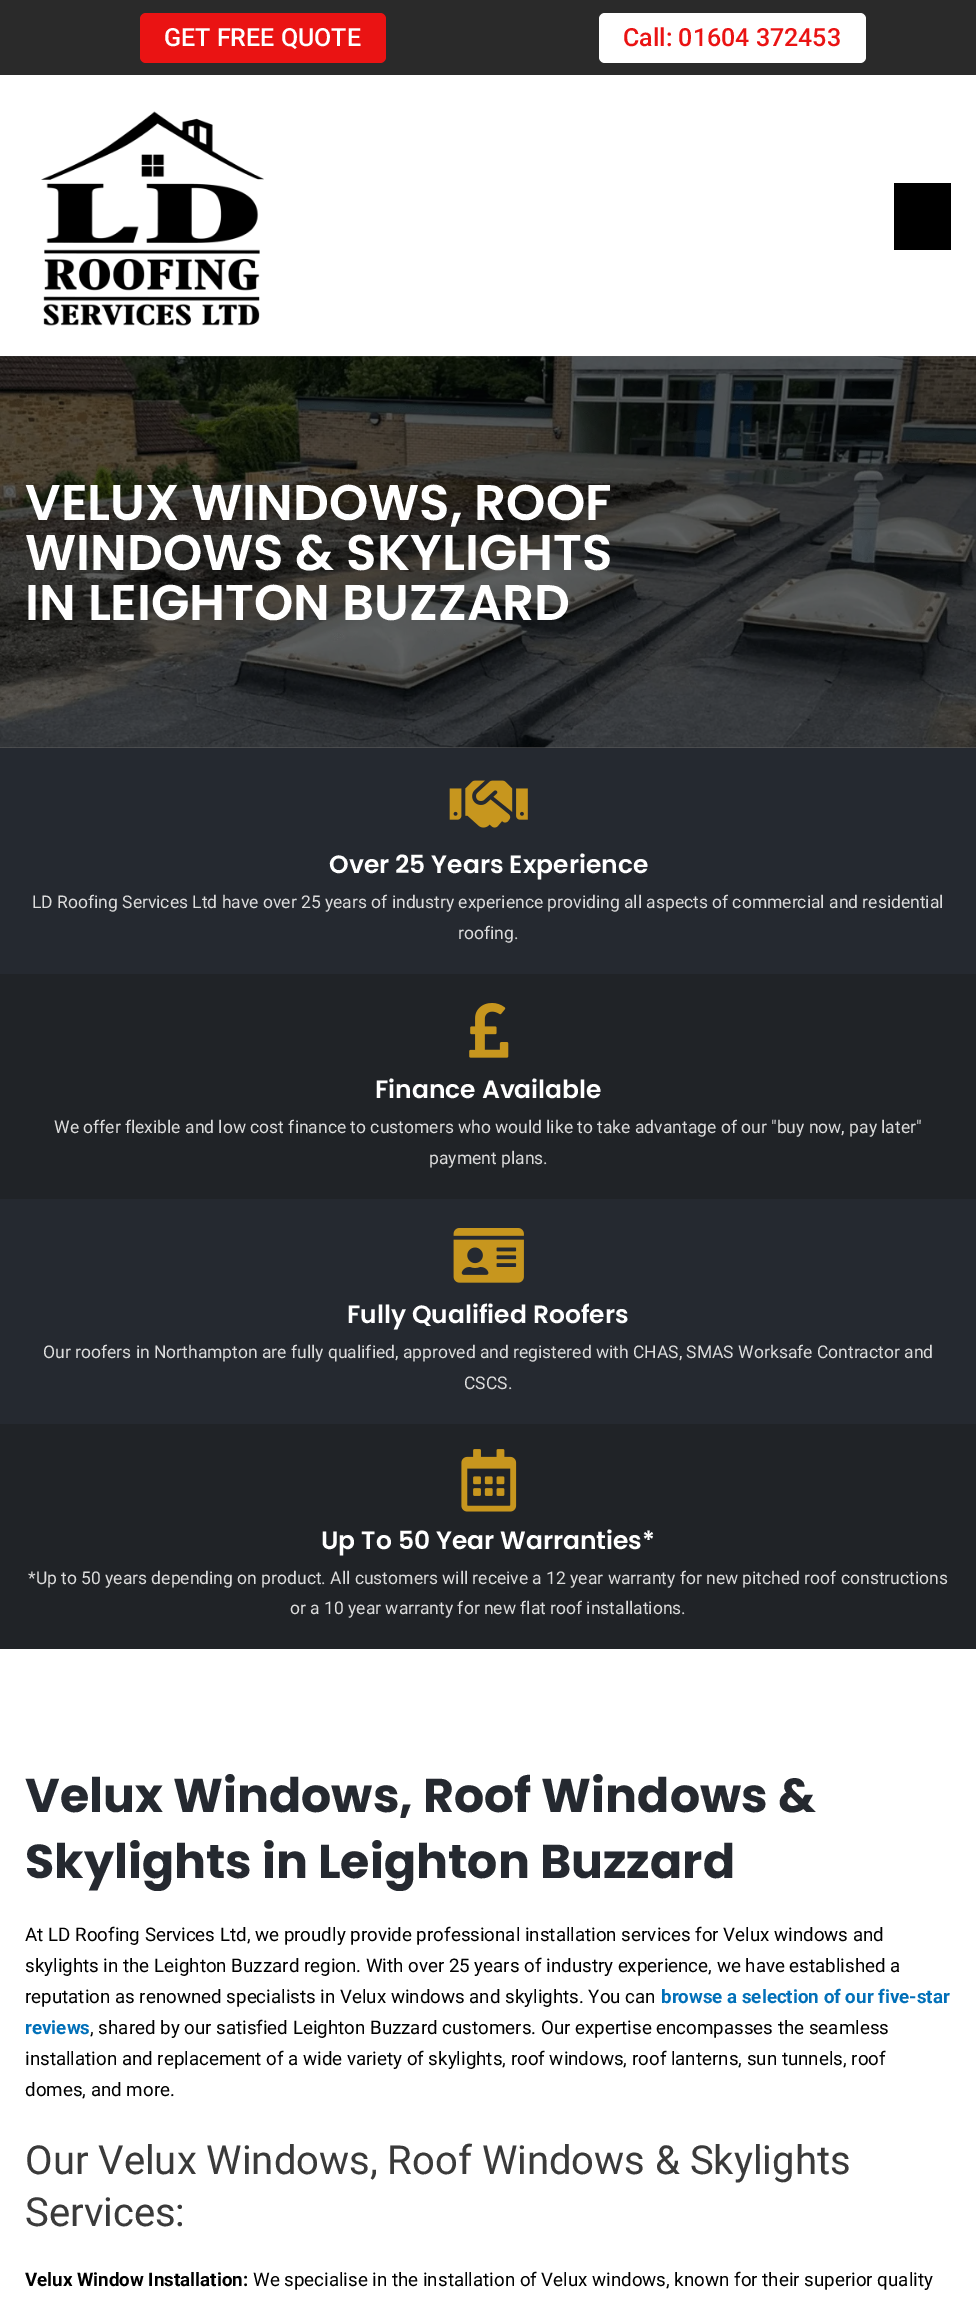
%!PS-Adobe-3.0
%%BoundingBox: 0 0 976 2304
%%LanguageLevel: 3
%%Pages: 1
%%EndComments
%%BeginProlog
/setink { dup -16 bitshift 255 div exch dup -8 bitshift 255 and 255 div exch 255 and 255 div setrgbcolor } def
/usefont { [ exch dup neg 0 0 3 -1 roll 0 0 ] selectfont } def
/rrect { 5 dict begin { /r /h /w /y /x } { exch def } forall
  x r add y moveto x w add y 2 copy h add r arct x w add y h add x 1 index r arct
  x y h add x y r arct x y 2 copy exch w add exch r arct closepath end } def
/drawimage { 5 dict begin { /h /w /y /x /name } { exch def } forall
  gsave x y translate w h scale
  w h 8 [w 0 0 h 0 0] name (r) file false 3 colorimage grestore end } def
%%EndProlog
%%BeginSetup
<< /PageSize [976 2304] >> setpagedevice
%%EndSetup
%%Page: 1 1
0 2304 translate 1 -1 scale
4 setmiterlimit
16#FFFFFF setink
0 0 976 2304 rectfill
16#616161 setink
0 356 976 392 rectfill
16#2A2A2A setink
0 0 976 75 rectfill
16#EA1313 setink
140 13 246 50 6 rrect fill
/Roboto-Medium 25 usefont
16#FFFFFF setink
164 46 moveto (GET FREE QUOTE) show
599 13 267 50 6 rrect fill
16#EA1313 setink
623 46 moveto (Call: 01604 372453) show
(img1.raw) 41 111 223 215 drawimage
16#000000 setink
894 183 57 67 rectfill
(img2.raw) 0 356 976 392 drawimage
/Poppins-SemiBold 50 usefont
16#FFFFFF setink
[
    [(VELUX WINDOWS, ROOF) 25 520]
    [(WINDOWS & SKYLIGHTS) 25 570]
    [(IN LEIGHTON BUZZARD) 25 620]
] { aload pop moveto show } forall
16#252930 setink
0 748 976 676 rectfill
(img3.raw) 449 780 79 48 drawimage
/Poppins-SemiBold 25 usefont
16#FFFFFF setink
329 873 moveto (Over 25 Years Experience) show
/Roboto-Regular 17.5 usefont
16#DCDCDC setink
32 908 moveto (LD Roofing Services Ltd have over 25 years of industry experience providing all aspects of commercial and residential) show
458 939 moveto (roofing.) show
16#202327 setink
0 974 976 225 rectfill
(img4.raw) 469 1003 40 55 drawimage
/Poppins-SemiBold 25 usefont
16#FFFFFF setink
375 1098 moveto (Finance Available) show
/Roboto-Regular 17.5 usefont
16#DCDCDC setink
54 1133 moveto (We offer flexible and low cost finance to customers who would like to take advantage of our "buy now, pay later") show
429 1164 moveto (payment plans.) show
(img5.raw) 453 1228 71 55 drawimage
/Poppins-SemiBold 25 usefont
16#FFFFFF setink
347 1323 moveto (Fully Qualified Roofers) show
/Roboto-Regular 17.5 usefont
16#DCDCDC setink
43 1358 moveto (Our roofers in Northampton are fully qualified, approved and registered with CHAS, SMAS Worksafe Contractor and) show
464 1389 moveto (CSCS.) show
16#202327 setink
0 1424 976 225 rectfill
(img6.raw) 461 1449 56 63 drawimage
/Poppins-SemiBold 25 usefont
16#FFFFFF setink
321 1549 moveto (Up To 50 Year Warranties*) show
/Roboto-Regular 17.5 usefont
16#DCDCDC setink
28 1584 moveto (*Up to 50 years depending on product. All customers will receive a 12 year warranty for new pitched roof constructions) show
290 1614 moveto (or a 10 year warranty for new flat roof installations.) show
/Poppins-Bold 47.5 usefont
16#252930 setink
25 1812 moveto (Velux Windows, Roof Windows &) show
25 1878 moveto (Skylights in Leighton Buzzard) show
/Roboto-Regular 18.75 usefont
16#000000 setink
[
    [(At LD Roofing Services Ltd, we proudly provide professional installation services for Velux windows and) 25 1941]
    [(skylights in the Leighton Buzzard region. With over 25 years of industry experience, we have established a) 25 1972]
    [(reputation as renowned specialists in Velux windows and skylights. You can) 25 2003]
] { aload pop moveto show } forall
/Roboto-Bold 18.75 usefont
16#0170B9 setink
661 2003 moveto (browse a selection of our five-star) show
25 2034 moveto (reviews) show
/Roboto-Regular 18.75 usefont
16#000000 setink
[
    [(, shared by our satisfied Leighton Buzzard customers. Our expertise encompasses the seamless) 90 2034]
    [(installation and replacement of a wide variety of skylights, roof windows, roof lanterns, sun tunnels, roof) 25 2065]
    [(domes, and more.) 25 2096]
] { aload pop moveto show } forall
/Roboto-Regular 40 usefont
16#3A3A3A setink
25 2174 moveto (Our Velux Windows, Roof Windows & Skylights) show
25 2226 moveto (Services:) show
/Roboto-Bold 18.75 usefont
16#000000 setink
25 2286 moveto (Velux Window Installation:) show
/Roboto-Regular 18.75 usefont
253 2286 moveto (We specialise in the installation of Velux windows, known for their superior quality) show
showpage
%%EOF
